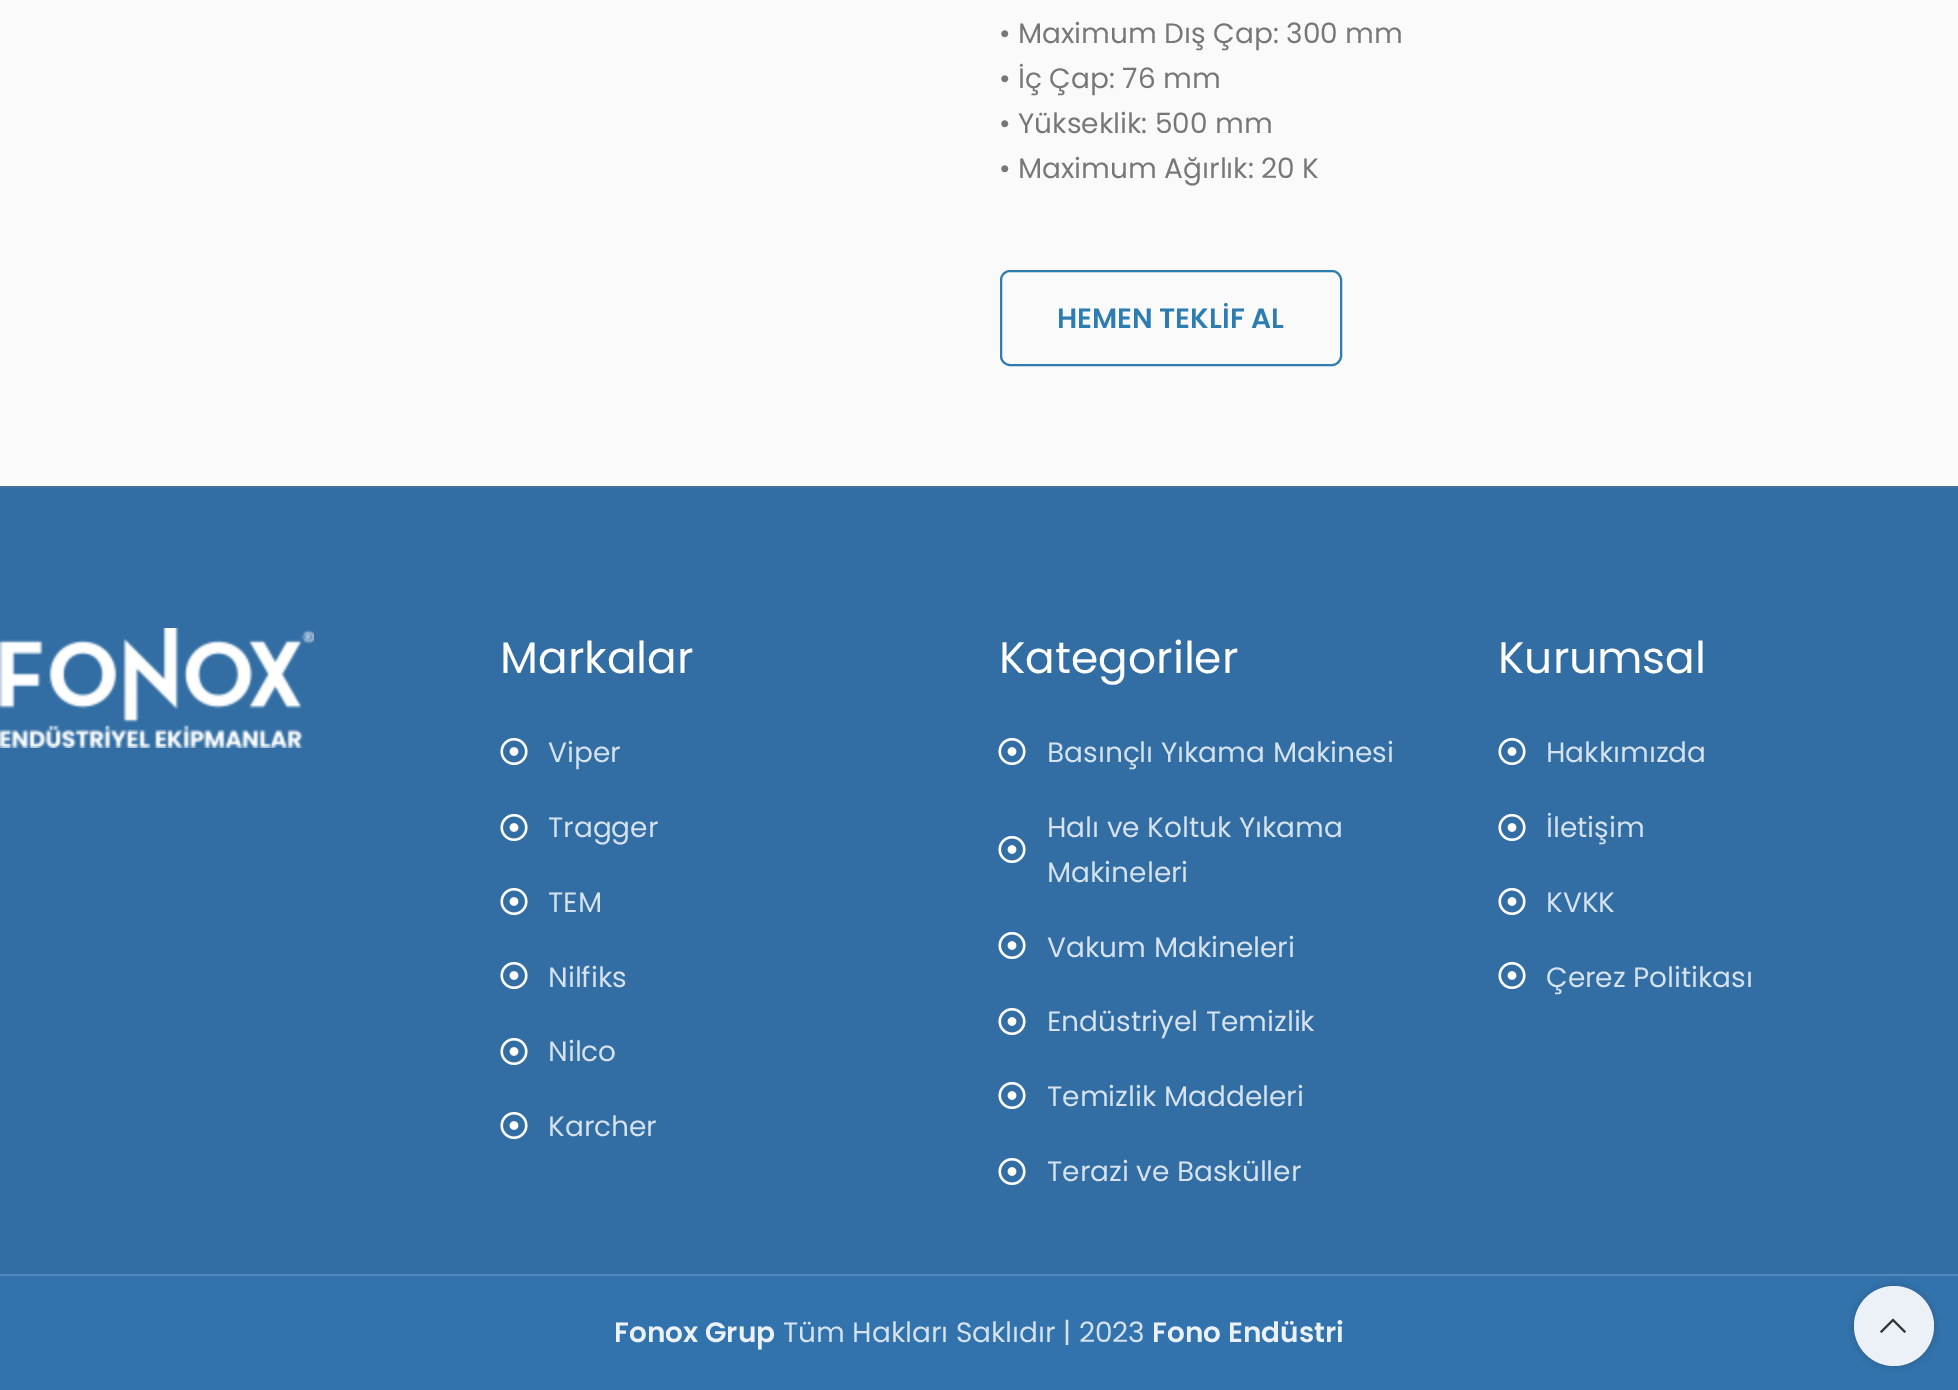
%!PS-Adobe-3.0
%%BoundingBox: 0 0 1958 1390
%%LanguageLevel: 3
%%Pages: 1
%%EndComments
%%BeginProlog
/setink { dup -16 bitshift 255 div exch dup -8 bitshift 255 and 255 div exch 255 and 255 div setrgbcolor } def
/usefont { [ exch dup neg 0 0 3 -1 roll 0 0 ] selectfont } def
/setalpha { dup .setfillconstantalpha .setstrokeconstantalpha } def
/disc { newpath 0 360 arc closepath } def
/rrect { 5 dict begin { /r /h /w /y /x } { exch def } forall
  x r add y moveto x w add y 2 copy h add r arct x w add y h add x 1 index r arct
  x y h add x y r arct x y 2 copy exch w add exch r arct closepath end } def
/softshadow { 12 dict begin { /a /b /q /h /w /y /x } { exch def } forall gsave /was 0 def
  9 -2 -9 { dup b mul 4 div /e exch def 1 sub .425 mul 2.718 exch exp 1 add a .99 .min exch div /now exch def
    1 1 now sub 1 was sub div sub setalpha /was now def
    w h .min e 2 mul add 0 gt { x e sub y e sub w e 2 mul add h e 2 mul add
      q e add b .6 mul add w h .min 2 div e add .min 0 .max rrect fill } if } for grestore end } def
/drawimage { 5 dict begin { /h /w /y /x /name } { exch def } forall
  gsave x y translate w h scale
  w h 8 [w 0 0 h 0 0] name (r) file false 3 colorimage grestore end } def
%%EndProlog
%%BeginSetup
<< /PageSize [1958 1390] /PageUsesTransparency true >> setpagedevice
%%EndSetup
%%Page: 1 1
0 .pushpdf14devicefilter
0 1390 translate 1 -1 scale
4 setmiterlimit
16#3273AD setink
0 0 1958 1390 rectfill
16#FAFAFA setink
0 0 1958 486 rectfill
/Poppins-Regular 28 usefont
16#777777 setink
[
    [(• Maximum Dış Çap: 300 mm) 999 43]
    [(• İç Çap: 76 mm) 999 88]
    [(• Yükseklik: 500 mm) 999 133]
    [(• Maximum Ağırlık: 20 K) 999 178]
] { aload pop moveto show } forall
16#2D7CB2 setink
2 setlinewidth
1001 271 340 94 9 rrect stroke
/Poppins-SemiBold 28 usefont
1057 328 moveto (HEMEN TEKLİF AL) show
16#326EA4 setink
0 488 1958 786 rectfill
16#42729D setink
0 486 1958 2 rectfill
(img1.raw) 0 628 314 120 drawimage
/Poppins-Regular 44 usefont
16#FFFFFF setink
500 673 moveto (Markalar) show
(img2.raw) 500 738 28 27 drawimage
/Poppins-Regular 28 usefont
16#D6E3EF setink
548 762 moveto (Viper) show
(img2.raw) 500 814 28 27 drawimage
548 837 moveto (Tragger) show
(img2.raw) 500 888 28 27 drawimage
548 912 moveto (TEM) show
(img2.raw) 500 962 28 27 drawimage
548 987 moveto (Nilfiks) show
(img2.raw) 500 1038 28 27 drawimage
548 1061 moveto (Nilco) show
(img2.raw) 500 1112 28 27 drawimage
548 1136 moveto (Karcher) show
/Poppins-Regular 44 usefont
16#FFFFFF setink
999 673 moveto (Kategoriler) show
(img2.raw) 998 738 28 27 drawimage
/Poppins-Regular 28 usefont
16#D6E3EF setink
1047 762 moveto (Basınçlı Yıkama Makinesi) show
(img2.raw) 998 836 28 27 drawimage
1047 837 moveto (Halı ve Koltuk Yıkama) show
1047 882 moveto (Makineleri) show
(img2.raw) 998 932 28 27 drawimage
1047 957 moveto (Vakum Makineleri) show
(img2.raw) 998 1008 28 27 drawimage
1047 1031 moveto (Endüstriyel Temizlik) show
(img2.raw) 998 1082 28 27 drawimage
1047 1106 moveto (Temizlik Maddeleri) show
(img2.raw) 998 1158 28 27 drawimage
1047 1181 moveto (Terazi ve Basküller) show
/Poppins-Regular 44 usefont
16#FFFFFF setink
1498 673 moveto (Kurumsal) show
(img2.raw) 1498 738 28 27 drawimage
/Poppins-Regular 28 usefont
16#D6E3EF setink
1546 762 moveto (Hakkımızda) show
(img2.raw) 1498 814 28 27 drawimage
1546 837 moveto (İletişim) show
(img2.raw) 1498 888 28 27 drawimage
1546 912 moveto (KVKK) show
(img2.raw) 1498 962 28 27 drawimage
1546 987 moveto (Çerez Politikası) show
16#5188B9 setink
0 1274 1958 2 rectfill
/Poppins-SemiBold 28 usefont
16#EBF1F7 setink
614 1342 moveto (Fonox Grup) show
/Poppins-Regular 28 usefont
16#D6E3EF setink
783 1342 moveto (Tüm Hakları Saklıdır | 2023) show
/Poppins-SemiBold 28 usefont
16#EBF1F7 setink
1152 1342 moveto (Fono Endüstri) show
gsave
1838 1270 moveto 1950 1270 lineto 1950 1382 lineto 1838 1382 lineto closepath 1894 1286 moveto 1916 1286 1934 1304 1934 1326 curveto 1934 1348 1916 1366 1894 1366 curveto 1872 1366 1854 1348 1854 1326 curveto 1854 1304 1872 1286 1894 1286 curveto closepath eoclip newpath
16#000000 setink
1854 1286 80 80 40 5 0.17 softshadow
grestore
0.9 setalpha
16#FFFFFF setink
1894 1326 40 disc fill
1 setalpha
16#333333 setink
1904.5 1333 moveto 1906 1331.5 lineto 1893 1318.5 lineto 1880 1331.5 lineto 1881.5 1333 lineto 1893 1321.5 lineto closepath fill
.poppdf14devicefilter showpage
%%EOF
